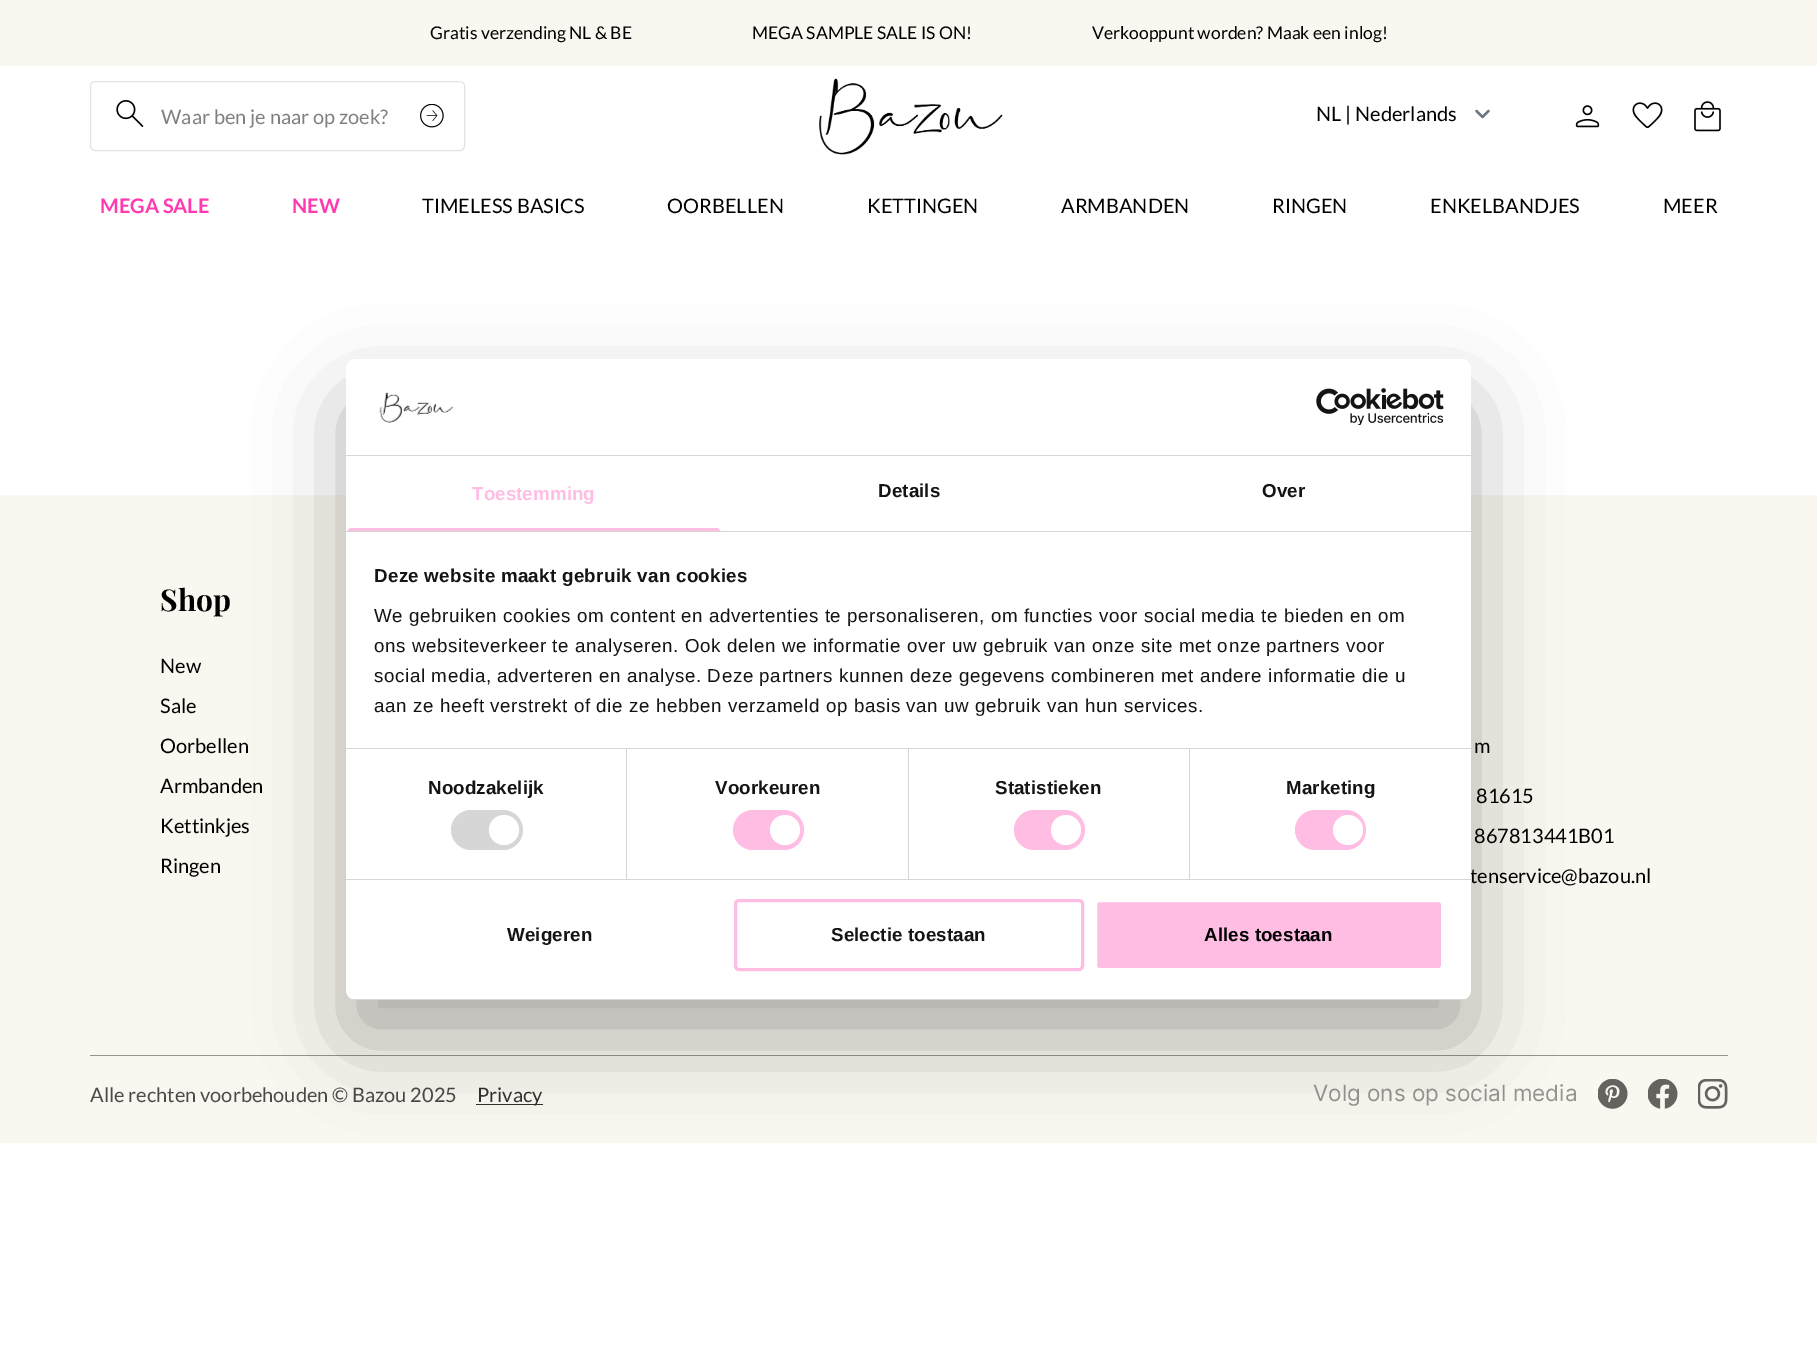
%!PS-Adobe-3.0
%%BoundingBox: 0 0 1817 1359
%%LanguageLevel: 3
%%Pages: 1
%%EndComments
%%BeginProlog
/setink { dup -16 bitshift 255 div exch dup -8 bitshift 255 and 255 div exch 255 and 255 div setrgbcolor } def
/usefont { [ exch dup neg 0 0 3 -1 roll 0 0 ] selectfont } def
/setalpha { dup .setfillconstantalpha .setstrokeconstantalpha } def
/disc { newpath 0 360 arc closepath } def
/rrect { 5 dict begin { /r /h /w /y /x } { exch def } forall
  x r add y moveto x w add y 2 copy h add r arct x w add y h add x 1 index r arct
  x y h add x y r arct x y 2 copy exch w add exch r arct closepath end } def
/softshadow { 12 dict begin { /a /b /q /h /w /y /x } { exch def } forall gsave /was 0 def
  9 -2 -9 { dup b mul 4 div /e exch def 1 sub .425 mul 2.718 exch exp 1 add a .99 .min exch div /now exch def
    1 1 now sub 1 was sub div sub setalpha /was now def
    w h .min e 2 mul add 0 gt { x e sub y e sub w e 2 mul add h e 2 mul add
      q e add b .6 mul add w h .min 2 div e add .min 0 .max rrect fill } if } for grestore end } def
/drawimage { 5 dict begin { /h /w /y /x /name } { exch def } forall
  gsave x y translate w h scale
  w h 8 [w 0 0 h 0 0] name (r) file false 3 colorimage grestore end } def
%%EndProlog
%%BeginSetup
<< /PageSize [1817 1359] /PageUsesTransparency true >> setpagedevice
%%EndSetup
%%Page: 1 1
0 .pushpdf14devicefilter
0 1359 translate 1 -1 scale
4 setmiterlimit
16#FFFFFF setink
0 0 1817 1359 rectfill
16#F9F7F0 setink
0 0 1817 66 rectfill
/Lato-Regular 17.5 usefont
16#000000 setink
[
    [(Gratis verzending NL & BE) 430 39]
    [(MEGA SAMPLE SALE IS ON!) 752 39]
    [(Verkooppunt worden? Maak een inlog!) 1092 39]
] { aload pop moveto show } forall
(img1.raw) 819 78 184 77 drawimage
16#E3E3E3 setink
90.5 81.5 374 69 4.5 rrect stroke
(img2.raw) 116 100 28 27 drawimage
/Lato-Regular 20 usefont
16#808080 setink
161 124 moveto (Waar ben je naar op zoek?) show
(img3.raw) 420 104 24 24 drawimage
16#6B7280 setink
2.2 setlinewidth
1 setlinecap
1 setlinejoin
1476.5 111 moveto 1482.5 117 lineto 1488.5 111 lineto stroke
16#000000 setink
1316 121 moveto (NL | Nederlands) show
(img4.raw) 1575 105 25 23 drawimage
(img5.raw) 1632 102 31 27 drawimage
(img6.raw) 1694 101 27 31 drawimage
/Lato-Bold 20 usefont
16#FF39B0 setink
100 213 moveto (MEGA SALE) show
292 213 moveto (NEW) show
/Lato-Regular 20 usefont
16#000000 setink
[
    [(TIMELESS BASICS) 422 213]
    [(OORBELLEN) 667 213]
    [(KETTINGEN) 867 213]
    [(ARMBANDEN) 1061 213]
    [(RINGEN) 1272 213]
    [(ENKELBANDJES) 1430 213]
    [(MEER) 1663 213]
] { aload pop moveto show } forall
16#F9F7F0 setink
0 495 1817 648 rectfill
/PlayfairDisplay-Bold 30 usefont
16#000000 setink
160 611 moveto (Shop) show
/Lato-Regular 20 usefont
[
    [(New) 160 673]
    [(Sale) 160 713]
    [(Oorbellen) 160 753]
    [(Armbanden) 160 793]
    [(Kettinkjes) 160 833]
    [(Ringen) 160 873]
    [(m) 1474 753]
    [(81615) 1476 803]
    [(867813441B01) 1474 843]
    [(tenservice@bazou.nl) 1470 883]
] { aload pop moveto show } forall
16#959490 setink
90 1055 1638 1 rectfill
16#4B4A48 setink
90 1102 moveto (Alle rechten voorbehouden © Bazou 2025) show
16#323130 setink
476 1104 67 1 rectfill
477 1102 moveto (Privacy) show
/Inter-Regular 22.5 usefont
16#959490 setink
1313 1101 moveto (Volg ons op social media) show
(img7.raw) 1598 1079 30 30 drawimage
(img8.raw) 1648 1079 30 30 drawimage
(img9.raw) 1698 1079 30 30 drawimage
16#000000 setink
346 399 1125 641 10 42.5 0.3 softshadow
16#FFFFFF setink
346 359 1125 641 10 rrect fill
16#D6D6D6 setink
346 455 1125 1 rectfill
(img10.raw) 379 392 74 31 drawimage
(img11.raw) 1316 388 128 37 drawimage
346 531 1125 1 rectfill
gsave
346 456 1125 75 rectclip
16#FFBDE4 setink
721 532 moveto 346 532 lineto 350 528 lineto 718 528 lineto closepath fill
grestore
/LiberationSans-Bold 18.75 usefont
16#FFBDE4 setink
472 500 moveto 0.1 0 (Toestemming) ashow
16#141414 setink
878 497 moveto 0.1 0 (Details) ashow
1262 497 moveto 0.1 0 (Over) ashow
16#D6D6D6 setink
346 748 1125 1 rectfill
16#141414 setink
374 582 moveto 0.3 0 (Deze website maakt gebruik van cookies) ashow
/LiberationSans-Regular 18.75 usefont
374 622 moveto 0.62 0 (We gebruiken cookies om content en advertenties te personaliseren, om functies voor social media te bieden en om) ashow
374 652 moveto 0.62 0 (ons websiteverkeer te analyseren. Ook delen we informatie over uw gebruik van onze site met onze partners voor) ashow
374 682 moveto 0.62 0 (social media, adverteren en analyse. Deze partners kunnen deze gegevens combineren met andere informatie die u) ashow
374 712 moveto 0.62 0 (aan ze heeft verstrekt of die ze hebben verzameld op basis van uw gebruik van hun services.) ashow
16#D6D6D6 setink
346 879 1125 1 rectfill
626 749 1 130 rectfill
/LiberationSans-Bold 18.75 usefont
16#141414 setink
428 794 moveto 0.1 0 (Noodzakelijk) ashow
16#D6D6D6 setink
451 810 72 40 20 rrect fill
16#FFFFFF setink
504 830 15 disc fill
16#D6D6D6 setink
908 749 1 130 rectfill
16#141414 setink
715 794 moveto 0.1 0 (Voorkeuren) ashow
16#FFBDE4 setink
733 810 71 40 20 rrect fill
16#FFFFFF setink
785 830 15 disc fill
16#D6D6D6 setink
1189 749 1 130 rectfill
16#141414 setink
995 794 moveto 0.1 0 (Statistieken) ashow
16#FFBDE4 setink
1014 810 71 40 20 rrect fill
16#FFFFFF setink
1066 830 15 disc fill
16#141414 setink
1286 794 moveto 0.1 0 (Marketing) ashow
16#FFBDE4 setink
1295 810 71 40 20 rrect fill
16#FFFFFF setink
1348 830 15 disc fill
gsave
346 359 1125 641 10 rrect clip newpath
16#D6D6D6 setink
346 999 1125 1 rectfill
grestore
16#141414 setink
507 941 moveto 0.1 0 (Weigeren) ashow
16#FFBDE4 setink
3 setlinewidth
0 setlinecap
0 setlinejoin
735.5 900.5 347 69 3.5 rrect stroke
16#141414 setink
831 941 moveto 0.1 0 (Selectie toestaan) ashow
16#FFBDE4 setink
1095.5 900.5 347 69 3.5 rrect gsave fill grestore
16#FFFFFF setink
stroke
16#000000 setink
1204 941 moveto 0.1 0 (Alles toestaan) ashow
.poppdf14devicefilter showpage
%%EOF
